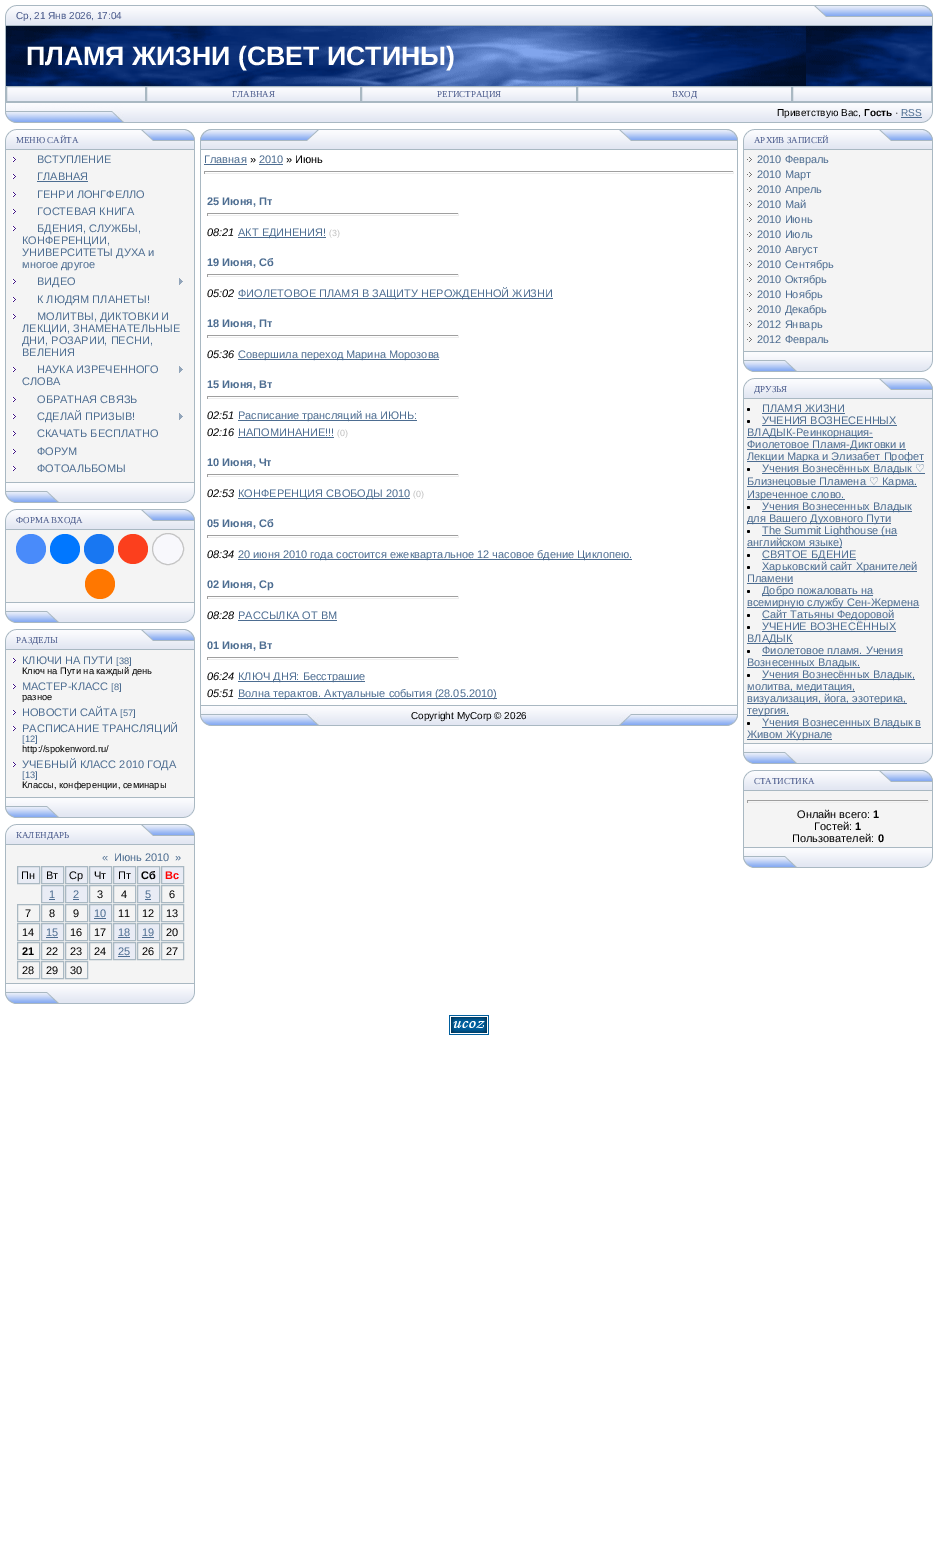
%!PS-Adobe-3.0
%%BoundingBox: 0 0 938 1559
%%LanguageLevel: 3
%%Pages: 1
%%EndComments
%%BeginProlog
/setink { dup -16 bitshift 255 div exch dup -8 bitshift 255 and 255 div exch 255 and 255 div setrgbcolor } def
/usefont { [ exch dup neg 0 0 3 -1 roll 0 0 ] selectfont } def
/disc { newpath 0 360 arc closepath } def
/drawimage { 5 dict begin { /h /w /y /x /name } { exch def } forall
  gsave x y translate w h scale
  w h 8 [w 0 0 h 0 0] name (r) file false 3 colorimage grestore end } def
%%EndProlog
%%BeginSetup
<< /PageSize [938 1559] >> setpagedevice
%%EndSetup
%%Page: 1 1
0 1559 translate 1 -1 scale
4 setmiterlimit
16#FFFFFF setink
0 0 938 1559 rectfill
(img1.raw) 5 5 11 21 drawimage
(img2.raw) 16 5 798 21 drawimage
/LiberationSans-Regular 10 usefont
16#445588 setink
16 19 moveto (Ср, 21 Янв 2026, 17:04) show
(img3.raw) 814 5 119 21 drawimage
16#A9B8C2 setink
932 26 1 76 rectfill
5 26 1 76 rectfill
(img4.raw) 6 26 926 60 drawimage
/LiberationSans-Bold 26.7 usefont
16#FFFFFF setink
26 65 moveto (ПЛАМЯ ЖИЗНИ \(СВЕТ ИСТИНЫ\)) show
(img5.raw) 7 87 138 14 drawimage
16#A9B8C2 setink
6.5 86.5 139 15 rectstroke
(img6.raw) 147 87 213 14 drawimage
146.5 86.5 214 15 rectstroke
/LiberationSerif-Regular 9 usefont
16#445588 setink
232 97 moveto (ГЛАВНАЯ) show
(img7.raw) 362 87 214 14 drawimage
16#A9B8C2 setink
361.5 86.5 215 15 rectstroke
16#445588 setink
437 97 moveto (РЕГИСТРАЦИЯ) show
(img6.raw) 578 87 213 14 drawimage
16#A9B8C2 setink
577.5 86.5 214 15 rectstroke
16#445588 setink
672 97 moveto (ВХОД) show
(img5.raw) 793 87 138 14 drawimage
16#A9B8C2 setink
792.5 86.5 139 15 rectstroke
(img8.raw) 5 102 119 21 drawimage
(img2.raw) 124 102 798 21 drawimage
/LiberationSans-Regular 10 usefont
16#000000 setink
777 116 moveto (Приветствую Вас,) show
/LiberationSans-Bold 10 usefont
864 116 moveto (Гость) show
/LiberationSans-Regular 10 usefont
895 116 moveto (·) show
16#4D6D91 setink
901 116 moveto (RSS) show
901 117 21 1 rectfill
(img9.raw) 922 102 11 21 drawimage
(img1.raw) 5 129 11 21 drawimage
(img10.raw) 16 129 125 21 drawimage
/LiberationSerif-Regular 9 usefont
16#445588 setink
16 143 moveto (МЕНЮ САЙТА) show
(img11.raw) 141 129 54 21 drawimage
[
    [6 150 188 332 16#F4F4F4]
    [194 150 1 332 16#A9B8C2]
    [5 150 1 332 16#A9B8C2]
] { aload pop setink rectfill } forall
(img12.raw) 12 157 4 5 drawimage
/LiberationSans-Regular 11 usefont
16#4D6D91 setink
37 163 moveto (ВСТУПЛЕНИЕ) show
(img12.raw) 12 174 4 5 drawimage
37 180 moveto (ГЛАВНАЯ) show
37 181 51 1 rectfill
(img12.raw) 12 192 4 5 drawimage
37 198 moveto (ГЕНРИ ЛОНГФЕЛЛО) show
(img12.raw) 12 209 4 5 drawimage
37 215 moveto (ГОСТЕВАЯ КНИГА) show
(img12.raw) 12 226 4 5 drawimage
[
    [(БДЕНИЯ, СЛУЖБЫ,) 37 232]
    [(КОНФЕРЕНЦИИ,) 22 244]
    [(УНИВЕРСИТЕТЫ ДУХА и) 22 256]
    [(многое другое) 22 268]
] { aload pop moveto show } forall
(img12.raw) 12 279 4 5 drawimage
37 285 moveto (ВИДЕО) show
(img13.raw) 179 278 4 7 drawimage
(img12.raw) 12 297 4 5 drawimage
37 303 moveto (К ЛЮДЯМ ПЛАНЕТЫ!) show
(img12.raw) 12 314 4 5 drawimage
[
    [(МОЛИТВЫ, ДИКТОВКИ И) 37 320]
    [(ЛЕКЦИИ, ЗНАМЕНАТЕЛЬНЫЕ) 22 332]
    [(ДНИ, РОЗАРИИ, ПЕСНИ,) 22 344]
    [(ВЕЛЕНИЯ) 22 356]
] { aload pop moveto show } forall
(img12.raw) 12 367 4 5 drawimage
37 373 moveto (НАУКА ИЗРЕЧЕННОГО) show
(img13.raw) 179 366 4 7 drawimage
22 385 moveto (СЛОВА) show
(img12.raw) 12 397 4 5 drawimage
37 403 moveto (ОБРАТНАЯ СВЯЗЬ) show
(img12.raw) 12 414 4 5 drawimage
37 420 moveto (СДЕЛАЙ ПРИЗЫВ!) show
(img13.raw) 179 413 4 7 drawimage
(img12.raw) 12 431 4 5 drawimage
37 437 moveto (СКАЧАТЬ БЕСПЛАТНО) show
(img12.raw) 12 449 4 5 drawimage
37 455 moveto (ФОРУМ) show
(img12.raw) 12 466 4 5 drawimage
37 472 moveto (ФОТОАЛЬБОМЫ) show
(img14.raw) 5 482 190 21 drawimage
(img1.raw) 5 509 11 21 drawimage
(img10.raw) 16 509 125 21 drawimage
/LiberationSerif-Regular 9 usefont
16#445588 setink
16 523 moveto (ФОРМА ВХОДА) show
(img11.raw) 141 509 54 21 drawimage
[
    [6 530 188 72 16#F4F4F4]
    [194 530 1 72 16#A9B8C2]
    [5 530 1 72 16#A9B8C2]
] { aload pop setink rectfill } forall
16#498BFA setink
31 549 15 disc fill
16#0077FF setink
65 549 15 disc fill
16#1877F2 setink
99 549 15 disc fill
16#FC3F1D setink
133 549 15 disc fill
16#F8F8FC setink
168 549 15.5 disc gsave fill grestore
16#C4C4C4 setink
stroke
16#FF7700 setink
100 584 15 disc fill
(img14.raw) 5 602 190 21 drawimage
(img1.raw) 5 629 11 21 drawimage
(img10.raw) 16 629 125 21 drawimage
16#445588 setink
16 643 moveto (РАЗДЕЛЫ) show
(img11.raw) 141 629 54 21 drawimage
[
    [6 650 188 147 16#F4F4F4]
    [194 650 1 147 16#A9B8C2]
    [5 650 1 147 16#A9B8C2]
] { aload pop setink rectfill } forall
(img12.raw) 12 658 4 5 drawimage
/LiberationSans-Regular 11 usefont
16#4D6D91 setink
22 664 moveto (КЛЮЧИ НА ПУТИ) show
/LiberationSans-Regular 9.3 usefont
116 664 moveto ([38]) show
16#000000 setink
22 674 moveto (Ключ на Пути на каждый день) show
(img12.raw) 12 684 4 5 drawimage
/LiberationSans-Regular 11 usefont
16#4D6D91 setink
22 690 moveto (МАСТЕР-КЛАСС) show
/LiberationSans-Regular 9.3 usefont
111 690 moveto ([8]) show
16#000000 setink
22 700 moveto (разное) show
(img12.raw) 12 710 4 5 drawimage
/LiberationSans-Regular 11 usefont
16#4D6D91 setink
22 716 moveto (НОВОСТИ САЙТА) show
/LiberationSans-Regular 9.3 usefont
120 716 moveto ([57]) show
(img12.raw) 12 726 4 5 drawimage
/LiberationSans-Regular 11 usefont
22 732 moveto (РАСПИСАНИЕ ТРАНСЛЯЦИЙ) show
/LiberationSans-Regular 9.3 usefont
22 742 moveto ([12]) show
16#000000 setink
22 752 moveto (http://spokenword.ru/) show
(img12.raw) 12 762 4 5 drawimage
/LiberationSans-Regular 11 usefont
16#4D6D91 setink
22 768 moveto (УЧЕБНЫЙ КЛАСС 2010 ГОДА) show
/LiberationSans-Regular 9.3 usefont
22 778 moveto ([13]) show
16#000000 setink
22 788 moveto (Классы, конференции, семинары) show
(img14.raw) 5 797 190 21 drawimage
(img1.raw) 5 824 11 21 drawimage
(img10.raw) 16 824 125 21 drawimage
/LiberationSerif-Regular 9 usefont
16#445588 setink
16 838 moveto (КАЛЕНДАРЬ) show
(img11.raw) 141 824 54 21 drawimage
[
    [6 845 188 138 16#F4F4F4]
    [194 845 1 138 16#A9B8C2]
    [5 845 1 138 16#A9B8C2]
] { aload pop setink rectfill } forall
/LiberationSans-Regular 11 usefont
16#4D6D91 setink
[
    [(«) 102 861]
    [(Июнь 2010) 114 861]
    [(») 175 861]
] { aload pop moveto show } forall
16#E9ECF5 setink
17.5 866.5 moveto 39.5 866.5 lineto 39.5 883.5 lineto 17.5 883.5 lineto closepath gsave fill grestore
16#A9B8C2 setink
stroke
16#000000 setink
21 879 moveto (Пн) show
16#E9ECF5 setink
41.5 866.5 moveto 63.5 866.5 lineto 63.5 883.5 lineto 41.5 883.5 lineto closepath gsave fill grestore
16#A9B8C2 setink
stroke
16#000000 setink
46 879 moveto (Вт) show
16#E9ECF5 setink
65.5 866.5 moveto 87.5 866.5 lineto 87.5 883.5 lineto 65.5 883.5 lineto closepath gsave fill grestore
16#A9B8C2 setink
stroke
16#000000 setink
69 879 moveto (Ср) show
16#E9ECF5 setink
89.5 866.5 moveto 111.5 866.5 lineto 111.5 883.5 lineto 89.5 883.5 lineto closepath gsave fill grestore
16#A9B8C2 setink
stroke
16#000000 setink
94 879 moveto (Чт) show
16#E9ECF5 setink
113.5 866.5 moveto 135.5 866.5 lineto 135.5 883.5 lineto 113.5 883.5 lineto closepath gsave fill grestore
16#A9B8C2 setink
stroke
16#000000 setink
118 879 moveto (Пт) show
16#E9ECF5 setink
137.5 866.5 moveto 159.5 866.5 lineto 159.5 883.5 lineto 137.5 883.5 lineto closepath gsave fill grestore
16#A9B8C2 setink
stroke
/LiberationSans-Bold 11 usefont
16#000000 setink
141 879 moveto (Сб) show
16#E9ECF5 setink
161.5 866.5 moveto 183.5 866.5 lineto 183.5 883.5 lineto 161.5 883.5 lineto closepath gsave fill grestore
16#A9B8C2 setink
stroke
16#FF0000 setink
165 879 moveto (Вс) show
16#E9ECF5 setink
41.5 885.5 moveto 63.5 885.5 lineto 63.5 902.5 lineto 41.5 902.5 lineto closepath gsave fill grestore
16#A9B8C2 setink
stroke
/LiberationSans-Regular 11 usefont
16#4D6D91 setink
49 898 moveto (1) show
49 899 6 1 rectfill
16#E9ECF5 setink
65.5 885.5 moveto 87.5 885.5 lineto 87.5 902.5 lineto 65.5 902.5 lineto closepath gsave fill grestore
16#A9B8C2 setink
stroke
16#4D6D91 setink
73 898 moveto (2) show
73 899 6 1 rectfill
16#A9B8C2 setink
89.5 885.5 22 17 rectstroke
16#000000 setink
97 898 moveto (3) show
16#A9B8C2 setink
113.5 885.5 22 17 rectstroke
16#000000 setink
121 898 moveto (4) show
16#E9ECF5 setink
137.5 885.5 moveto 159.5 885.5 lineto 159.5 902.5 lineto 137.5 902.5 lineto closepath gsave fill grestore
16#A9B8C2 setink
stroke
16#4D6D91 setink
145 898 moveto (5) show
145 899 6 1 rectfill
16#A9B8C2 setink
161.5 885.5 22 17 rectstroke
16#000000 setink
169 898 moveto (6) show
16#A9B8C2 setink
17.5 904.5 22 17 rectstroke
16#000000 setink
25 917 moveto (7) show
16#A9B8C2 setink
41.5 904.5 22 17 rectstroke
16#000000 setink
49 917 moveto (8) show
16#A9B8C2 setink
65.5 904.5 22 17 rectstroke
16#000000 setink
73 917 moveto (9) show
16#E9ECF5 setink
89.5 904.5 moveto 111.5 904.5 lineto 111.5 921.5 lineto 89.5 921.5 lineto closepath gsave fill grestore
16#A9B8C2 setink
stroke
16#4D6D91 setink
94 917 moveto (10) show
94 918 12 1 rectfill
16#A9B8C2 setink
113.5 904.5 22 17 rectstroke
16#000000 setink
118 917 moveto (11) show
16#A9B8C2 setink
137.5 904.5 22 17 rectstroke
16#000000 setink
142 917 moveto (12) show
16#A9B8C2 setink
161.5 904.5 22 17 rectstroke
16#000000 setink
166 917 moveto (13) show
16#A9B8C2 setink
17.5 923.5 22 17 rectstroke
16#000000 setink
22 936 moveto (14) show
16#E9ECF5 setink
41.5 923.5 moveto 63.5 923.5 lineto 63.5 940.5 lineto 41.5 940.5 lineto closepath gsave fill grestore
16#A9B8C2 setink
stroke
16#4D6D91 setink
46 936 moveto (15) show
46 937 12 1 rectfill
16#A9B8C2 setink
65.5 923.5 22 17 rectstroke
16#000000 setink
70 936 moveto (16) show
16#A9B8C2 setink
89.5 923.5 22 17 rectstroke
16#000000 setink
94 936 moveto (17) show
16#E9ECF5 setink
113.5 923.5 moveto 135.5 923.5 lineto 135.5 940.5 lineto 113.5 940.5 lineto closepath gsave fill grestore
16#A9B8C2 setink
stroke
16#4D6D91 setink
118 936 moveto (18) show
118 937 12 1 rectfill
16#E9ECF5 setink
137.5 923.5 moveto 159.5 923.5 lineto 159.5 940.5 lineto 137.5 940.5 lineto closepath gsave fill grestore
16#A9B8C2 setink
stroke
16#4D6D91 setink
142 936 moveto (19) show
142 937 12 1 rectfill
16#A9B8C2 setink
161.5 923.5 22 17 rectstroke
16#000000 setink
166 936 moveto (20) show
16#A9B8C2 setink
17.5 942.5 22 17 rectstroke
/LiberationSans-Bold 11 usefont
16#000000 setink
22 955 moveto (21) show
16#A9B8C2 setink
41.5 942.5 22 17 rectstroke
/LiberationSans-Regular 11 usefont
16#000000 setink
46 955 moveto (22) show
16#A9B8C2 setink
65.5 942.5 22 17 rectstroke
16#000000 setink
70 955 moveto (23) show
16#A9B8C2 setink
89.5 942.5 22 17 rectstroke
16#000000 setink
94 955 moveto (24) show
16#E9ECF5 setink
113.5 942.5 moveto 135.5 942.5 lineto 135.5 959.5 lineto 113.5 959.5 lineto closepath gsave fill grestore
16#A9B8C2 setink
stroke
16#4D6D91 setink
118 955 moveto (25) show
118 956 12 1 rectfill
16#A9B8C2 setink
137.5 942.5 22 17 rectstroke
16#000000 setink
142 955 moveto (26) show
16#A9B8C2 setink
161.5 942.5 22 17 rectstroke
16#000000 setink
166 955 moveto (27) show
16#A9B8C2 setink
17.5 961.5 22 17 rectstroke
16#000000 setink
22 974 moveto (28) show
16#A9B8C2 setink
41.5 961.5 22 17 rectstroke
16#000000 setink
46 974 moveto (29) show
16#A9B8C2 setink
65.5 961.5 22 17 rectstroke
16#000000 setink
70 974 moveto (30) show
(img14.raw) 5 983 190 21 drawimage
(img15.raw) 200 129 119 21 drawimage
(img16.raw) 319 129 300 21 drawimage
(img3.raw) 619 129 119 21 drawimage
16#A9B8C2 setink
737 150 1 555 rectfill
200 150 1 555 rectfill
16#4D6D91 setink
204 163 moveto (Главная) show
204 164 43 1 rectfill
16#000000 setink
250 163 moveto (») show
16#4D6D91 setink
259 163 moveto (2010) show
259 164 24 1 rectfill
16#000000 setink
286 163 moveto (» Июнь) show
[
    [204 171 530 1 16#9F9F9F]
    [733 171 1 3 16#EEEEEE]
    [204 173 530 1 16#EEEEEE]
    [204 171 1 3 16#9F9F9F]
] { aload pop setink rectfill } forall
/LiberationSans-Bold 11 usefont
16#4D6D91 setink
207 205 moveto (25 Июня, Пт) show
[
    [207 213 252 1 16#9F9F9F]
    [458 213 1 3 16#EEEEEE]
    [207 215 252 1 16#EEEEEE]
    [207 213 1 3 16#9F9F9F]
] { aload pop setink rectfill } forall
/LiberationSans-Italic 11 usefont
16#000000 setink
207 236 moveto (08:21) show
16#4D6D91 setink
238 237 88 1 rectfill
/LiberationSans-Regular 11 usefont
238 236 moveto (АКТ ЕДИНЕНИЯ!) show
/LiberationSans-Regular 9 usefont
16#C3C3C3 setink
329 236 moveto (\(3\)) show
/LiberationSans-Bold 11 usefont
16#4D6D91 setink
207 266 moveto (19 Июня, Сб) show
[
    [207 274 252 1 16#9F9F9F]
    [458 274 1 3 16#EEEEEE]
    [207 276 252 1 16#EEEEEE]
    [207 274 1 3 16#9F9F9F]
] { aload pop setink rectfill } forall
/LiberationSans-Italic 11 usefont
16#000000 setink
207 297 moveto (05:02) show
16#4D6D91 setink
238 298 315 1 rectfill
/LiberationSans-Regular 11 usefont
238 297 moveto (ФИОЛЕТОВОЕ ПЛАМЯ В ЗАЩИТУ НЕРОЖДЕННОЙ ЖИЗНИ) show
/LiberationSans-Bold 11 usefont
207 327 moveto (18 Июня, Пт) show
[
    [207 335 252 1 16#9F9F9F]
    [458 335 1 3 16#EEEEEE]
    [207 337 252 1 16#EEEEEE]
    [207 335 1 3 16#9F9F9F]
] { aload pop setink rectfill } forall
/LiberationSans-Italic 11 usefont
16#000000 setink
207 358 moveto (05:36) show
16#4D6D91 setink
238 359 201 1 rectfill
/LiberationSans-Regular 11 usefont
238 358 moveto (Совершила переход Марина Морозова) show
/LiberationSans-Bold 11 usefont
207 388 moveto (15 Июня, Вт) show
[
    [207 396 252 1 16#9F9F9F]
    [458 396 1 3 16#EEEEEE]
    [207 398 252 1 16#EEEEEE]
    [207 396 1 3 16#9F9F9F]
] { aload pop setink rectfill } forall
/LiberationSans-Italic 11 usefont
16#000000 setink
207 419 moveto (02:51) show
16#4D6D91 setink
238 420 179 1 rectfill
/LiberationSans-Regular 11 usefont
238 419 moveto (Расписание трансляций на ИЮНЬ:) show
/LiberationSans-Italic 11 usefont
16#000000 setink
207 436 moveto (02:16) show
/LiberationSans-Regular 11 usefont
16#4D6D91 setink
238 436 moveto (НАПОМИНАНИЕ!!!) show
238 437 96 1 rectfill
/LiberationSans-Regular 9 usefont
16#C3C3C3 setink
337 436 moveto (\(0\)) show
/LiberationSans-Bold 11 usefont
16#4D6D91 setink
207 466 moveto (10 Июня, Чт) show
[
    [207 474 252 1 16#9F9F9F]
    [458 474 1 3 16#EEEEEE]
    [207 476 252 1 16#EEEEEE]
    [207 474 1 3 16#9F9F9F]
] { aload pop setink rectfill } forall
/LiberationSans-Italic 11 usefont
16#000000 setink
207 497 moveto (02:53) show
16#4D6D91 setink
238 498 172 1 rectfill
/LiberationSans-Regular 11 usefont
238 497 moveto (КОНФЕРЕНЦИЯ СВОБОДЫ 2010) show
/LiberationSans-Regular 9 usefont
16#C3C3C3 setink
413 497 moveto (\(0\)) show
/LiberationSans-Bold 11 usefont
16#4D6D91 setink
207 527 moveto (05 Июня, Сб) show
[
    [207 535 252 1 16#9F9F9F]
    [458 535 1 3 16#EEEEEE]
    [207 537 252 1 16#EEEEEE]
    [207 535 1 3 16#9F9F9F]
] { aload pop setink rectfill } forall
/LiberationSans-Italic 11 usefont
16#000000 setink
207 558 moveto (08:34) show
16#4D6D91 setink
238 559 394 1 rectfill
/LiberationSans-Regular 11 usefont
238 558 moveto (20 июня 2010 года состоится ежеквартальное 12 часовое бдение Циклопею.) show
/LiberationSans-Bold 11 usefont
207 588 moveto (02 Июня, Ср) show
[
    [207 596 252 1 16#9F9F9F]
    [458 596 1 3 16#EEEEEE]
    [207 598 252 1 16#EEEEEE]
    [207 596 1 3 16#9F9F9F]
] { aload pop setink rectfill } forall
/LiberationSans-Italic 11 usefont
16#000000 setink
207 619 moveto (08:28) show
/LiberationSans-Regular 11 usefont
16#4D6D91 setink
238 619 moveto (РАССЫЛКА ОТ ВМ) show
238 620 99 1 rectfill
/LiberationSans-Bold 11 usefont
207 649 moveto (01 Июня, Вт) show
[
    [207 657 252 1 16#9F9F9F]
    [458 657 1 3 16#EEEEEE]
    [207 659 252 1 16#EEEEEE]
    [207 657 1 3 16#9F9F9F]
] { aload pop setink rectfill } forall
/LiberationSans-Italic 11 usefont
16#000000 setink
207 680 moveto (06:24) show
16#4D6D91 setink
238 681 127 1 rectfill
/LiberationSans-Regular 11 usefont
238 680 moveto (КЛЮЧ ДНЯ: Бесстрашие) show
/LiberationSans-Italic 11 usefont
16#000000 setink
207 697 moveto (05:51) show
16#4D6D91 setink
238 698 259 1 rectfill
/LiberationSans-Regular 11 usefont
238 697 moveto (Волна терактов. Актуальные события \(28.05.2010\)) show
(img8.raw) 200 705 119 21 drawimage
(img16.raw) 319 705 300 21 drawimage
/LiberationSans-Regular 10 usefont
16#000000 setink
411 719 moveto (Copyright MyCorp © 2026) show
(img17.raw) 619 705 119 21 drawimage
(img1.raw) 743 129 11 21 drawimage
(img10.raw) 754 129 125 21 drawimage
/LiberationSerif-Regular 9 usefont
16#445588 setink
754 143 moveto (АРХИВ ЗАПИСЕЙ) show
(img11.raw) 879 129 54 21 drawimage
[
    [744 150 188 201 16#F4F4F4]
    [932 150 1 201 16#A9B8C2]
    [743 150 1 201 16#A9B8C2]
] { aload pop setink rectfill } forall
(img18.raw) 747 157 5 5 drawimage
/LiberationSans-Regular 11 usefont
16#4D6D91 setink
757 163 moveto (2010 Февраль) show
(img18.raw) 747 172 5 5 drawimage
757 178 moveto (2010 Март) show
(img18.raw) 747 187 5 5 drawimage
757 193 moveto (2010 Апрель) show
(img18.raw) 747 202 5 5 drawimage
757 208 moveto (2010 Май) show
(img18.raw) 747 217 5 5 drawimage
757 223 moveto (2010 Июнь) show
(img18.raw) 747 232 5 5 drawimage
757 238 moveto (2010 Июль) show
(img18.raw) 747 247 5 5 drawimage
757 253 moveto (2010 Август) show
(img18.raw) 747 262 5 5 drawimage
757 268 moveto (2010 Сентябрь) show
(img18.raw) 747 277 5 5 drawimage
757 283 moveto (2010 Октябрь) show
(img18.raw) 747 292 5 5 drawimage
757 298 moveto (2010 Ноябрь) show
(img18.raw) 747 307 5 5 drawimage
757 313 moveto (2010 Декабрь) show
(img18.raw) 747 322 5 5 drawimage
757 328 moveto (2012 Январь) show
(img18.raw) 747 337 5 5 drawimage
757 343 moveto (2012 Февраль) show
(img14.raw) 743 351 190 21 drawimage
(img1.raw) 743 378 11 21 drawimage
(img10.raw) 754 378 125 21 drawimage
/LiberationSerif-Regular 9 usefont
16#445588 setink
754 392 moveto (ДРУЗЬЯ) show
(img11.raw) 879 378 54 21 drawimage
[
    [744 399 188 344 16#F4F4F4]
    [932 399 1 344 16#A9B8C2]
    [743 399 1 344 16#A9B8C2]
] { aload pop setink rectfill } forall
16#000000 setink
748.5 409.5 1.5 disc fill
/LiberationSans-Regular 11 usefont
16#4D6D91 setink
762 412 moveto (ПЛАМЯ ЖИЗНИ) show
762 413 83 1 rectfill
16#000000 setink
748.5 421.5 1.5 disc fill
16#4D6D91 setink
762 424 moveto (УЧЕНИЯ ВОЗНЕСЕННЫХ) show
762 425 135 1 rectfill
747 437 126 1 rectfill
747 436 moveto (ВЛАДЫК-Реинкорнация-) show
747 449 159 1 rectfill
747 448 moveto (Фиолетовое Пламя-Диктовки и) show
747 461 177 1 rectfill
747 460 moveto (Лекции Марка и Элизабет Профет) show
16#000000 setink
748.5 469.5 1.5 disc fill
16#4D6D91 setink
762 473 163 1 rectfill
762 472 moveto (Учения Вознесённых Владык) show
/DejaVuSans-Regular 11 usefont
915 472 moveto (♡) show
747 486 170 1 rectfill
/LiberationSans-Regular 11 usefont
747 485 moveto (Близнецовые Пламена) show
/DejaVuSans-Regular 11 usefont
869 485 moveto (♡) show
/LiberationSans-Regular 11 usefont
882 485 moveto (Карма.) show
747 499 98 1 rectfill
747 498 moveto (Изреченное слово.) show
16#000000 setink
748.5 507.5 1.5 disc fill
16#4D6D91 setink
762 511 150 1 rectfill
762 510 moveto (Учения Вознесенных Владык) show
747 523 144 1 rectfill
747 522 moveto (для Вашего Духовного Пути) show
16#000000 setink
748.5 531.5 1.5 disc fill
16#4D6D91 setink
762 535 135 1 rectfill
762 534 moveto (The Summit Lighthouse \(на) show
747 547 95 1 rectfill
747 546 moveto (английском языке\)) show
16#000000 setink
748.5 555.5 1.5 disc fill
16#4D6D91 setink
762 559 94 1 rectfill
762 558 moveto (СВЯТОЕ БДЕНИЕ) show
16#000000 setink
748.5 567.5 1.5 disc fill
16#4D6D91 setink
762 571 155 1 rectfill
762 570 moveto (Харьковский сайт Хранителей) show
747 582 moveto (Пламени) show
747 583 46 1 rectfill
16#000000 setink
748.5 591.5 1.5 disc fill
16#4D6D91 setink
762 595 111 1 rectfill
762 594 moveto (Добро пожаловать на) show
747 607 172 1 rectfill
747 606 moveto (всемирную службу Сен-Жермена) show
16#000000 setink
748.5 615.5 1.5 disc fill
16#4D6D91 setink
762 619 132 1 rectfill
762 618 moveto (Сайт Татьяны Федоровой) show
16#000000 setink
748.5 627.5 1.5 disc fill
16#4D6D91 setink
762 630 moveto (УЧЕНИЕ ВОЗНЕСЁННЫХ) show
762 631 134 1 rectfill
747 643 46 1 rectfill
747 642 moveto (ВЛАДЫК) show
16#000000 setink
748.5 651.5 1.5 disc fill
16#4D6D91 setink
762 654 moveto (Фиолетовое пламя. Учения) show
762 655 141 1 rectfill
747 667 113 1 rectfill
747 666 moveto (Вознесенных Владык.) show
16#000000 setink
748.5 675.5 1.5 disc fill
16#4D6D91 setink
762 679 153 1 rectfill
762 678 moveto (Учения Вознесённых Владык,) show
747 691 108 1 rectfill
747 690 moveto (молитва, медитация,) show
747 703 160 1 rectfill
747 702 moveto (визуализация, йога, эзотерика,) show
747 715 42 1 rectfill
747 714 moveto (теургия.) show
16#000000 setink
748.5 723.5 1.5 disc fill
16#4D6D91 setink
762 727 159 1 rectfill
762 726 moveto (Yчeния Вoзнeceнныx Влaдык в) show
747 739 85 1 rectfill
747 738 moveto (Живoм Жypнaлe) show
(img14.raw) 743 743 190 21 drawimage
(img1.raw) 743 770 11 21 drawimage
(img10.raw) 754 770 125 21 drawimage
/LiberationSerif-Regular 9 usefont
16#445588 setink
754 784 moveto (СТАТИСТИКА) show
(img11.raw) 879 770 54 21 drawimage
[
    [744 791 188 56 16#F4F4F4]
    [932 791 1 56 16#A9B8C2]
    [743 791 1 56 16#A9B8C2]
    [747 800 182 1 16#9F9F9F]
    [928 800 1 3 16#EEEEEE]
    [747 802 182 1 16#EEEEEE]
    [747 800 1 3 16#9F9F9F]
] { aload pop setink rectfill } forall
/LiberationSans-Regular 11 usefont
16#000000 setink
797 818 moveto (Онлайн всего:) show
/LiberationSans-Bold 11 usefont
873 818 moveto (1) show
/LiberationSans-Regular 11 usefont
814 830 moveto (Гостей:) show
/LiberationSans-Bold 11 usefont
855 830 moveto (1) show
/LiberationSans-Regular 11 usefont
792 842 moveto (Пользователей:) show
/LiberationSans-Bold 11 usefont
878 842 moveto (0) show
(img14.raw) 743 847 190 21 drawimage
(img19.raw) 449 1015 40 20 drawimage
showpage
%%EOF
